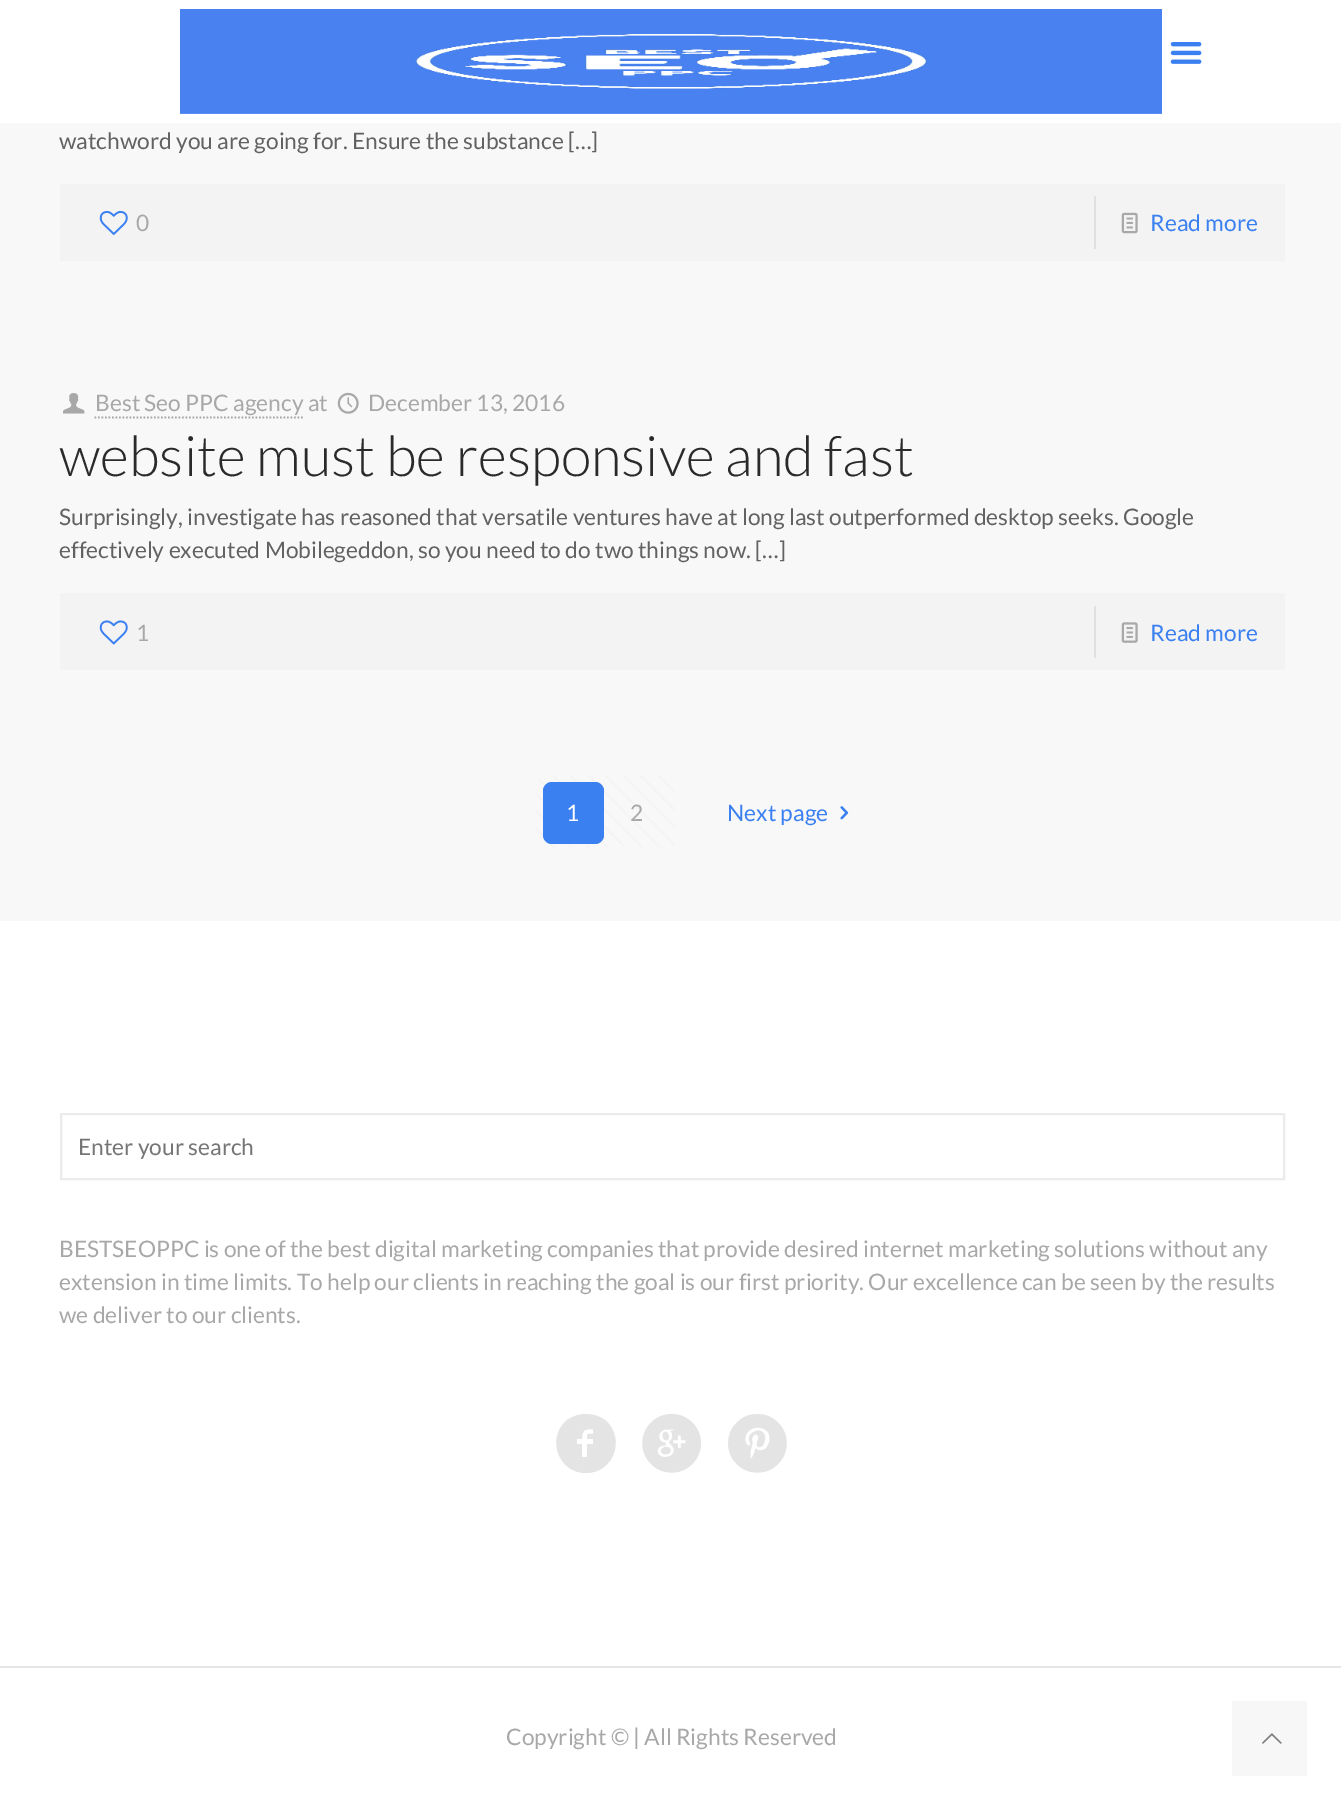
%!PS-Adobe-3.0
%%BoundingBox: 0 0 1341 1813
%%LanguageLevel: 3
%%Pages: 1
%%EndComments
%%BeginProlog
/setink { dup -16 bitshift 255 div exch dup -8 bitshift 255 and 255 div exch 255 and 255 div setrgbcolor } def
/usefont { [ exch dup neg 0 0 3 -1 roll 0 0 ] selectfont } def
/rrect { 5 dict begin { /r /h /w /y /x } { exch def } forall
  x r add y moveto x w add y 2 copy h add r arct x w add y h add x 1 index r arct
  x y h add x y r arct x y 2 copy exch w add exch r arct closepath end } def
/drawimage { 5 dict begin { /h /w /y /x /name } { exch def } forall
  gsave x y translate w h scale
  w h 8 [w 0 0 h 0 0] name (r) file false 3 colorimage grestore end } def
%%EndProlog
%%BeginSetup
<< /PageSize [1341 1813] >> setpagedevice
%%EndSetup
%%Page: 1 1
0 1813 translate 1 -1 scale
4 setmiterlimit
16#F8F8F8 setink
0 0 1341 1813 rectfill
16#FFFFFF setink
0 0 1341 123 rectfill
(img1.raw) 180 9 982 105 drawimage
(img2.raw) 1170 42 32 22 drawimage
/Lato-Regular 22.75 usefont
16#626262 setink
59 149 moveto (watchword you are going for. Ensure the substance […]) show
16#F3F3F3 setink
60 184 1225 77 rectfill
(img3.raw) 99 210 29 25 drawimage
16#A8A8A8 setink
136 231 moveto (0) show
16#E0E0E0 setink
1094 196 2 53 rectfill
(img4.raw) 1121 212 17 22 drawimage
16#3A80F1 setink
1150 231 moveto (Read more) show
(img5.raw) 63 393 22 21 drawimage
16#A8A8A8 setink
95 411 moveto (Best Seo PPC agency at) show
1.8 setlinewidth
[1.75 1.75] 0 setdash
94.5 417.5 moveto 303 417.5 lineto stroke
(img6.raw) 337 392 22 22 drawimage
368 411 moveto (December 13, 2016) show
/Lato-Light 56 usefont
16#2A2A2A setink
59 476 moveto (website must be responsive and fast) show
/Lato-Regular 22.75 usefont
16#626262 setink
59 525 moveto (Surprisingly, investigate has reasoned that versatile ventures have at long last outperformed desktop seeks. Google) show
59 558 moveto (effectively executed Mobilegeddon, so you need to do two things now. […]) show
16#F3F3F3 setink
60 593 1225 77 rectfill
(img7.raw) 99 620 29 25 drawimage
16#A8A8A8 setink
136 641 moveto (1) show
16#E0E0E0 setink
1094 606 2 52 rectfill
(img8.raw) 1121 622 17 21 drawimage
16#3A80F1 setink
1150 641 moveto (Read more) show
(img9.raw) 536 776 139 71 drawimage
543 782 61 62 9 rrect fill
16#FFFFFF setink
566 821 moveto (1) show
16#A8A8A8 setink
630 821 moveto (2) show
16#3A80F1 setink
727 821 moveto (Next page) show
(img10.raw) 840 806 9 14 drawimage
16#FFFFFF setink
0 921 1341 892 rectfill
16#EBEBEB setink
2 setlinewidth
[] 0 setdash
61 1114 1223 65 rectstroke
16#757575 setink
78 1155 moveto (Enter your search) show
16#A8A8A8 setink
[
    [(BESTSEOPPC is one of the best digital marketing companies that provide desired internet marketing solutions without any) 59 1257]
    [(extension in time limits. To help our clients in reaching the goal is our first priority. Our excellence can be seen by the results) 59 1290]
    [(we deliver to our clients.) 59 1323]
] { aload pop moveto show } forall
16#E4E4E4 setink
586 1414 moveto 593 1414 599 1416 605 1420 curveto 626 1438 614 1473 586 1473 curveto 558 1473 546 1438 567 1420 curveto 573 1416 579 1414 586 1414 curveto closepath 593 1434 moveto 593 1429 lineto 585 1429 582 1430 582 1439 curveto 577 1439 lineto 577 1444 lineto 582 1444 lineto 582 1457 lineto 587 1457 lineto 587 1444 lineto 593 1444 lineto 593 1439 lineto 587 1439 lineto 587 1433 587 1434 593 1434 curveto closepath fill
(img11.raw) 642 1414 59 59 drawimage
(img12.raw) 728 1414 59 59 drawimage
16#E6E6E6 setink
0 1666 1341 2 rectfill
16#A8A8A8 setink
506 1745 moveto (Copyright © | All Rights Reserved) show
16#F7F7F7 setink
1232 1701 75 75 rectfill
(img13.raw) 1262 1733 20 11 drawimage
showpage
%%EOF
